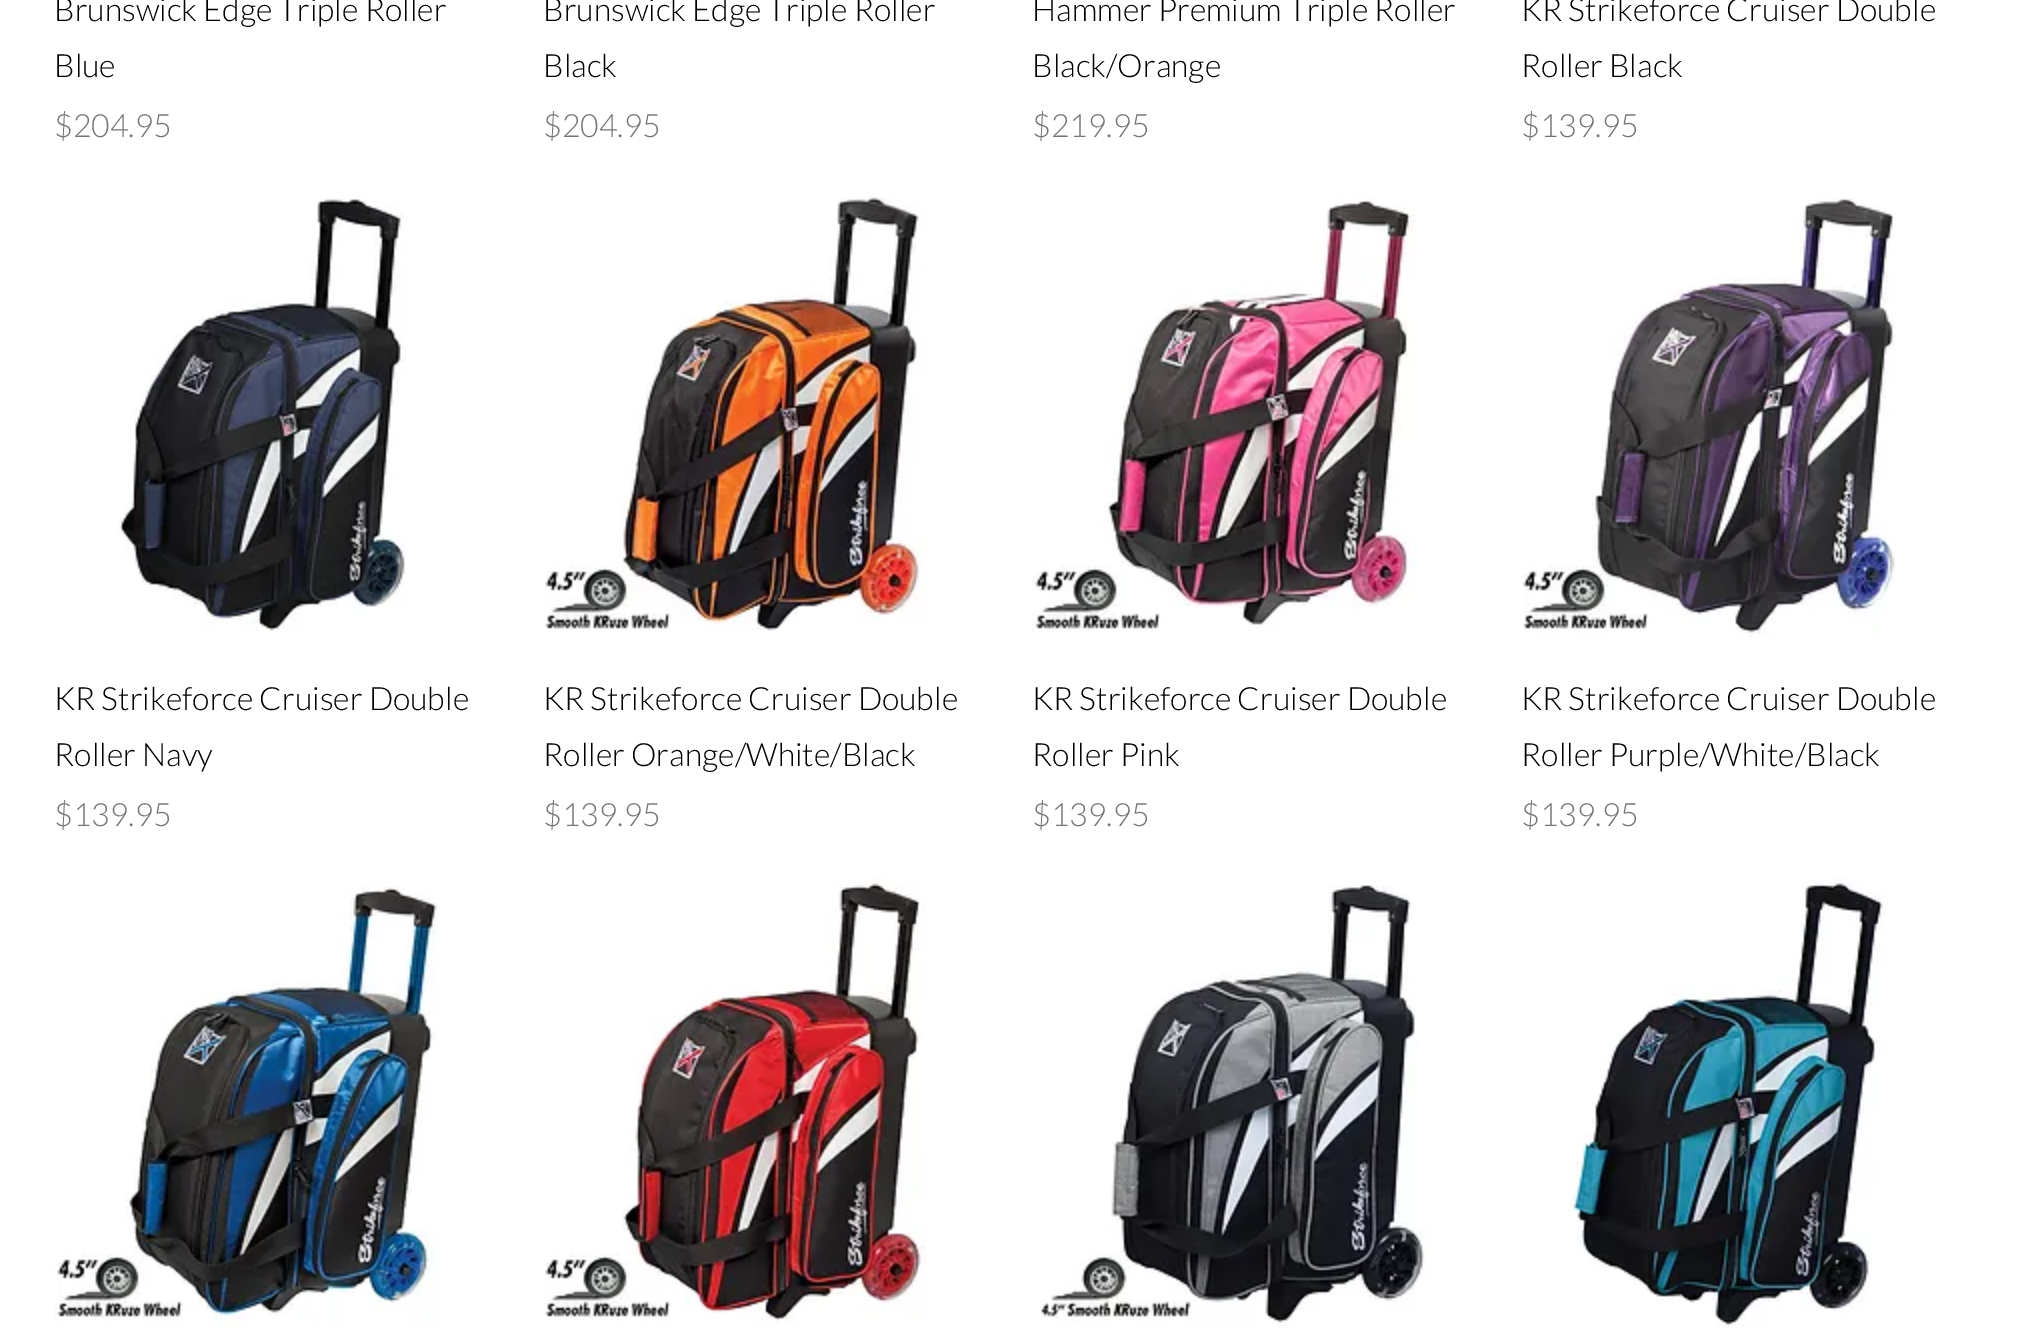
%!PS-Adobe-3.0
%%BoundingBox: 0 0 2024 1341
%%LanguageLevel: 3
%%Pages: 1
%%EndComments
%%BeginProlog
/setink { dup -16 bitshift 255 div exch dup -8 bitshift 255 and 255 div exch 255 and 255 div setrgbcolor } def
/usefont { [ exch dup neg 0 0 3 -1 roll 0 0 ] selectfont } def
/drawimage { 5 dict begin { /h /w /y /x /name } { exch def } forall
  gsave x y translate w h scale
  w h 8 [w 0 0 h 0 0] name (r) file false 3 colorimage grestore end } def
%%EndProlog
%%BeginSetup
<< /PageSize [2024 1341] >> setpagedevice
%%EndSetup
%%Page: 1 1
0 1341 translate 1 -1 scale
4 setmiterlimit
16#FFFFFF setink
0 0 2024 1341 rectfill
/Lato-Light 32 usefont
16#000000 setink
54 21 moveto (Brunswick Edge Triple Roller) show
54 77 moveto (Blue) show
16#757575 setink
54 137 moveto ($204.95) show
16#000000 setink
543 21 moveto (Brunswick Edge Triple Roller) show
543 77 moveto (Black) show
16#757575 setink
543 137 moveto ($204.95) show
16#000000 setink
1032 21 moveto (Hammer Premium Triple Roller) show
1032 77 moveto (Black/Orange) show
16#757575 setink
1032 137 moveto ($219.95) show
16#000000 setink
1521 21 moveto (KR Strikeforce Cruiser Double) show
1521 77 moveto (Roller Black) show
16#757575 setink
1521 137 moveto ($139.95) show
(img1.raw) 118 198 288 433 drawimage
16#000000 setink
54 710 moveto (KR Strikeforce Cruiser Double) show
54 766 moveto (Roller Navy) show
16#757575 setink
54 826 moveto ($139.95) show
(img2.raw) 545 197 382 434 drawimage
16#000000 setink
543 710 moveto (KR Strikeforce Cruiser Double) show
543 766 moveto (Roller Orange/White/Black) show
16#757575 setink
543 826 moveto ($139.95) show
(img3.raw) 1032 198 385 434 drawimage
16#000000 setink
1032 710 moveto (KR Strikeforce Cruiser Double) show
1032 766 moveto (Roller Pink) show
16#757575 setink
1032 826 moveto ($139.95) show
(img4.raw) 1522 198 374 439 drawimage
16#000000 setink
1521 710 moveto (KR Strikeforce Cruiser Double) show
1521 766 moveto (Roller Purple/White/Black) show
16#757575 setink
1521 826 moveto ($139.95) show
(img5.raw) 54 886 384 440 drawimage
(img6.raw) 544 878 382 447 drawimage
(img7.raw) 1040 885 391 441 drawimage
(img8.raw) 1568 878 318 450 drawimage
showpage
%%EOF
